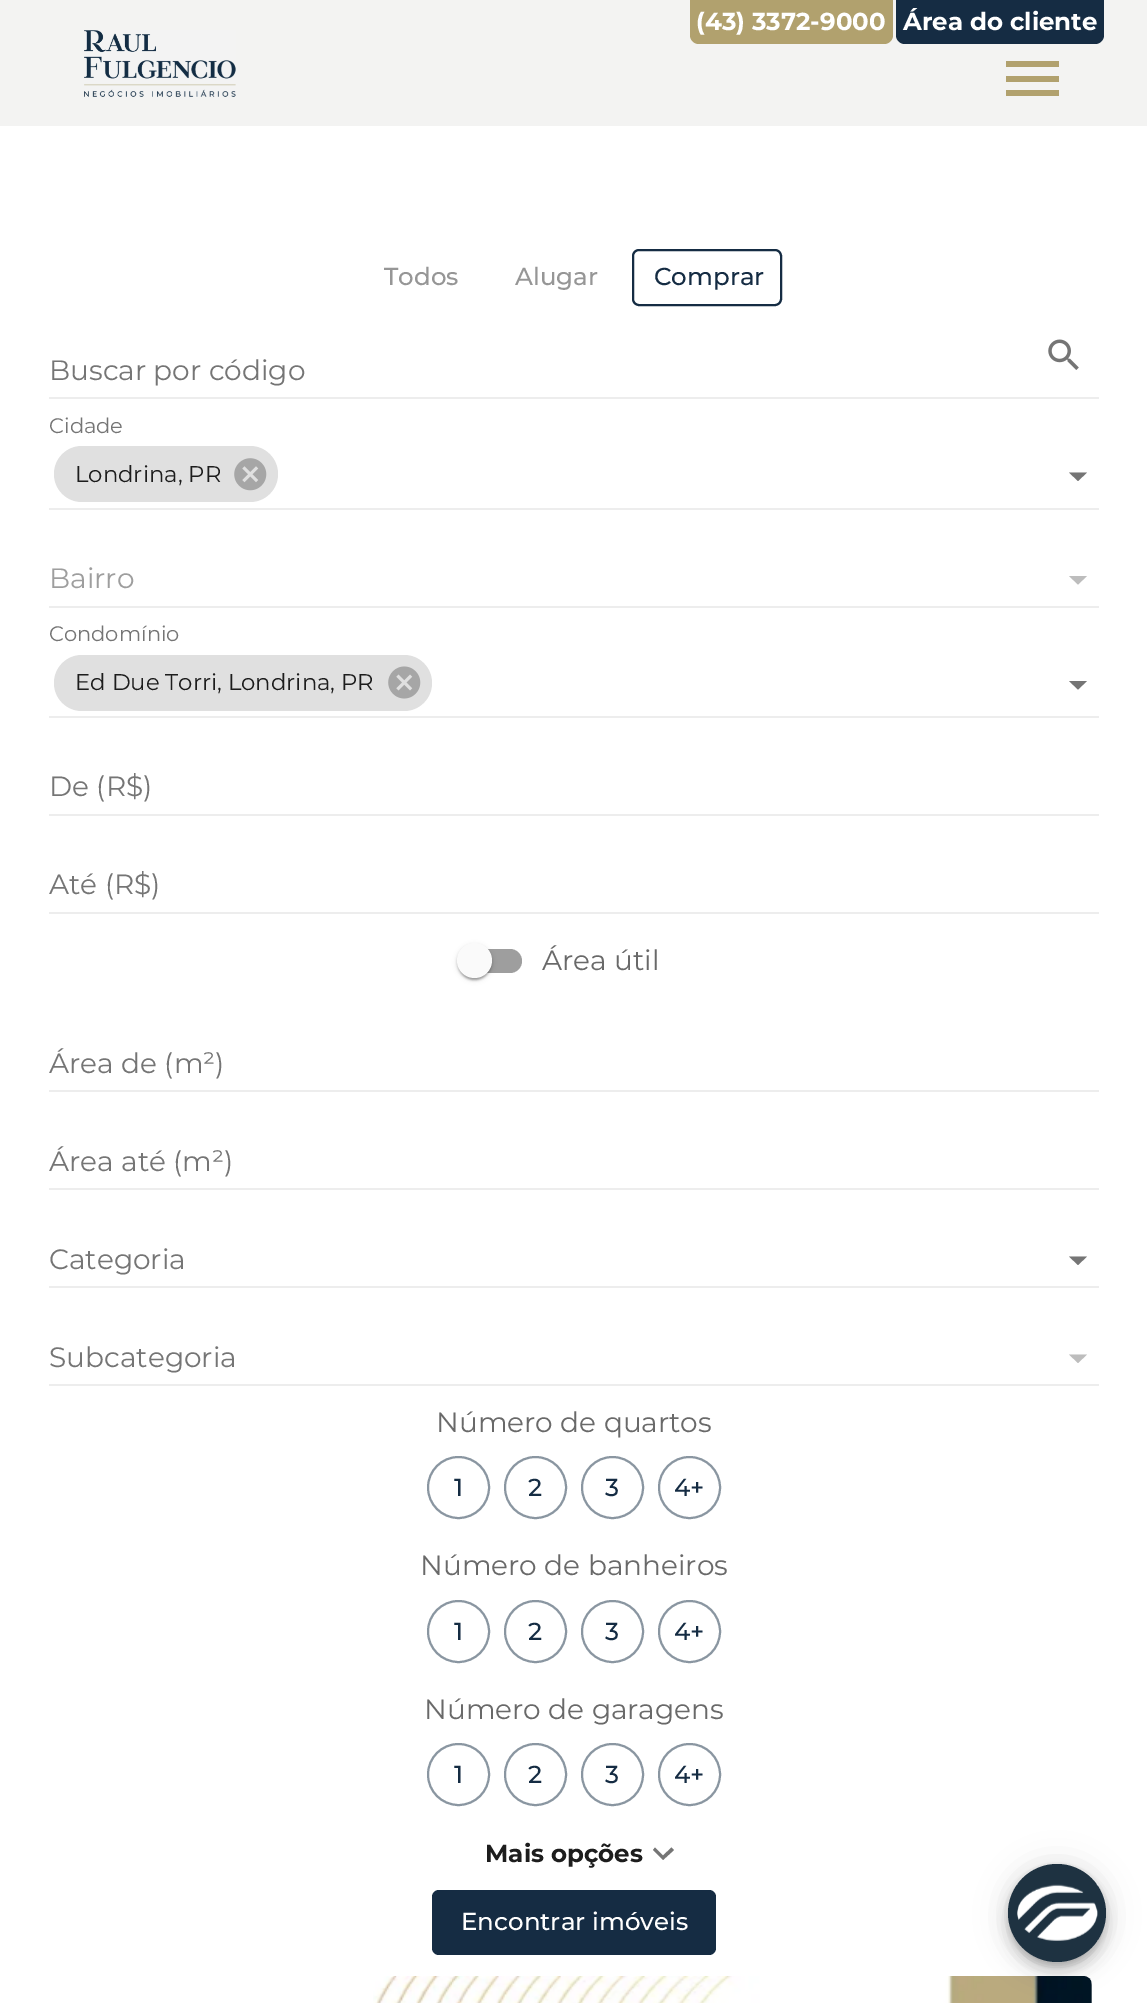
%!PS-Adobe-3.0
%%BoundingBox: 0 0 1147 2003
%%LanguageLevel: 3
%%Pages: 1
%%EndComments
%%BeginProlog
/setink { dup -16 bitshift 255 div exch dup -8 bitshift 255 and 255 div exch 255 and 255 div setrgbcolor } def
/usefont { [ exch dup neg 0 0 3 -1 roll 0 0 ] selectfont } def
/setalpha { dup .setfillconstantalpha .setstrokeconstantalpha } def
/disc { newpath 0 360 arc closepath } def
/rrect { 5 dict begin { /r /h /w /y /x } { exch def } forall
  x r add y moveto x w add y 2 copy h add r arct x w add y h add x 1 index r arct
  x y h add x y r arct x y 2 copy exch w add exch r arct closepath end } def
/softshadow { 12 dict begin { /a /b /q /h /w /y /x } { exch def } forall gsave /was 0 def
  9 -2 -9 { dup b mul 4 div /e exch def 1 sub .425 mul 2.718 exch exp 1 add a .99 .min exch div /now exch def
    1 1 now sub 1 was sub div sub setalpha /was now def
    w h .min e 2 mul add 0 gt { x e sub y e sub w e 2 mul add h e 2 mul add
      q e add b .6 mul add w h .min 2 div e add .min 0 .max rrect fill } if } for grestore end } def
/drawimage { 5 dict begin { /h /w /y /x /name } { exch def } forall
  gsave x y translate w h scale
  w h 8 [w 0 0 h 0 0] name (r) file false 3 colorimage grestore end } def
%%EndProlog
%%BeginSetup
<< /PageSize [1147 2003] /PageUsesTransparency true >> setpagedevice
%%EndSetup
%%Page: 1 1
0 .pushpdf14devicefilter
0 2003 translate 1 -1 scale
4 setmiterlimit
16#FFFFFF setink
0 0 1147 2003 rectfill
16#F3F3F2 setink
0 0 1147 126 rectfill
(img1.raw) 84 30 152 67 drawimage
16#B1A16E setink
1006 96 moveto 1059 96 lineto 1059 90 lineto 1006 90 lineto closepath 1006 82 moveto 1059 82 lineto 1059 76 lineto 1006 76 lineto closepath 1006 61 moveto 1006 67 lineto 1059 67 lineto 1059 61 lineto closepath fill
690 0 moveto 893 0 lineto 893 35 lineto 893 40 889 44 884 44 curveto 699 44 lineto 694 44 690 40 690 35 curveto closepath fill
/Montserrat-Bold 24.5 usefont
16#FFFFFF setink
696 30 moveto (\(43\) 3372-9000) show
16#152C43 setink
896 0 moveto 1104 0 lineto 1104 35 lineto 1104 40 1100 44 1095 44 curveto 905 44 lineto 900 44 896 40 896 35 curveto closepath fill
16#FFFFFF setink
903 30 moveto (Área do cliente) show
16#152C43 setink
2 setlinewidth
633 250 148 55 6 rrect stroke
/Montserrat-Medium 24.5 usefont
16#969696 setink
384 285 moveto (Todos) show
515 285 moveto (Alugar) show
16#152C43 setink
654 285 moveto (Comprar) show
/Montserrat-Regular 28 usefont
16#757575 setink
49 380 moveto (Buscar por código) show
16#EDEDED setink
49 397 1050 2 rectfill
(img2.raw) 1048 339 31 31 drawimage
/Montserrat-Regular 21 usefont
16#757575 setink
49 433 moveto (Cidade) show
16#E0E0E0 setink
54 446 224 56 28 rrect fill
/Montserrat-Regular 22.75 usefont
16#1D1D1D setink
75 482 moveto (Londrina, PR) show
(img3.raw) 234 458 33 33 drawimage
16#757575 setink
1069 472.5 moveto 1078 481 lineto 1087 472.5 lineto closepath fill
16#EDEDED setink
49 508 1050 2 rectfill
/Montserrat-Regular 28 usefont
16#9E9E9E setink
49 588 moveto (Bairro) show
16#BDBDBD setink
1069 576 moveto 1078 584.5 lineto 1087 576 lineto closepath fill
16#EDEDED setink
49 606 1050 2 rectfill
/Montserrat-Regular 21 usefont
16#757575 setink
49 641 moveto (Condomínio) show
16#E0E0E0 setink
54 655 378 56 28 rrect fill
/Montserrat-Regular 22.75 usefont
16#1D1D1D setink
75 690 moveto (Ed Due Torri, Londrina, PR) show
(img4.raw) 388 666 33 33 drawimage
16#757575 setink
1069 681 moveto 1078 689.5 lineto 1087 681 lineto closepath fill
16#EDEDED setink
49 716 1050 2 rectfill
/Montserrat-Regular 28 usefont
16#757575 setink
49 796 moveto (De \(R$\)) show
16#EDEDED setink
49 814 1050 2 rectfill
16#757575 setink
49 894 moveto (Até \(R$\)) show
16#EDEDED setink
49 912 1050 2 rectfill
16#9E9E9E setink
462 949 60 24 12 rrect fill
16#000000 setink
457 945 35 35 17.5 2.5 0.12 softshadow
457 945 35 35 17.5 1 0.14 softshadow
459 949 31 31 15.5 1 0.2 softshadow
16#FAFAFA setink
474.5 960.5 17.5 disc fill
16#696969 setink
542 970 moveto (Área útil) show
16#757575 setink
49 1073 moveto (Área de \(m²\)) show
16#EDEDED setink
49 1090 1050 2 rectfill
16#757575 setink
49 1171 moveto (Área até \(m²\)) show
16#EDEDED setink
49 1188 1050 2 rectfill
16#757575 setink
49 1269 moveto (Categoria) show
1069 1256.5 moveto 1078 1265 lineto 1087 1256.5 lineto closepath fill
16#EDEDED setink
49 1286 1050 2 rectfill
16#757575 setink
49 1367 moveto (Subcategoria) show
16#BDBDBD setink
1069 1354.5 moveto 1078 1363 lineto 1087 1354.5 lineto closepath fill
16#EDEDED setink
49 1384 1050 2 rectfill
16#696969 setink
436 1432 moveto (Número de quartos) show
16#8A96A1 setink
458.5 1487.5 30.5 disc stroke
/Montserrat-Medium 24.5 usefont
16#152C43 setink
454 1496 moveto (1) show
16#8A96A1 setink
535.5 1487.5 30.5 disc stroke
16#152C43 setink
528 1496 moveto (2) show
16#8A96A1 setink
612.5 1487.5 30.5 disc stroke
16#152C43 setink
605 1496 moveto (3) show
16#8A96A1 setink
689.5 1487.5 30.5 disc stroke
16#152C43 setink
674 1496 moveto (4+) show
/Montserrat-Regular 28 usefont
16#696969 setink
420 1575 moveto (Número de banheiros) show
16#8A96A1 setink
458.5 1631.5 30.5 disc stroke
/Montserrat-Medium 24.5 usefont
16#152C43 setink
454 1640 moveto (1) show
16#8A96A1 setink
535.5 1631.5 30.5 disc stroke
16#152C43 setink
528 1640 moveto (2) show
16#8A96A1 setink
612.5 1631.5 30.5 disc stroke
16#152C43 setink
605 1640 moveto (3) show
16#8A96A1 setink
689.5 1631.5 30.5 disc stroke
16#152C43 setink
674 1640 moveto (4+) show
/Montserrat-Regular 28 usefont
16#696969 setink
424 1719 moveto (Número de garagens) show
16#8A96A1 setink
458.5 1774.5 30.5 disc stroke
/Montserrat-Medium 24.5 usefont
16#152C43 setink
454 1783 moveto (1) show
16#8A96A1 setink
535.5 1774.5 30.5 disc stroke
16#152C43 setink
528 1783 moveto (2) show
16#8A96A1 setink
612.5 1774.5 30.5 disc stroke
16#152C43 setink
605 1783 moveto (3) show
16#8A96A1 setink
689.5 1774.5 30.5 disc stroke
16#152C43 setink
674 1783 moveto (4+) show
/Montserrat-Bold 24.5 usefont
16#1D1D1D setink
485 1862 moveto (Mais opções) show
16#757575 setink
671.5 1847.5 moveto 663 1855.5 lineto 655 1847.5 lineto 653 1850 lineto 663 1860 lineto 674 1850 lineto closepath fill
16#152C43 setink
432 1890 284 65 7 rrect fill
/Montserrat-Medium 24.5 usefont
16#FFFFFF setink
461 1930 moveto (Encontrar imóveis) show
(img5.raw) 373 1976 719 27 drawimage
16#000000 setink
1008 1866 98 98 49 16 0.12 softshadow
1008 1874 98 98 49 9 0.14 softshadow
1010 1871 94 94 47 4.5 0.2 softshadow
16#1E3241 setink
1057 1913 49 disc fill
(img6.raw) 1017 1884 81 57 drawimage
.poppdf14devicefilter showpage
%%EOF
